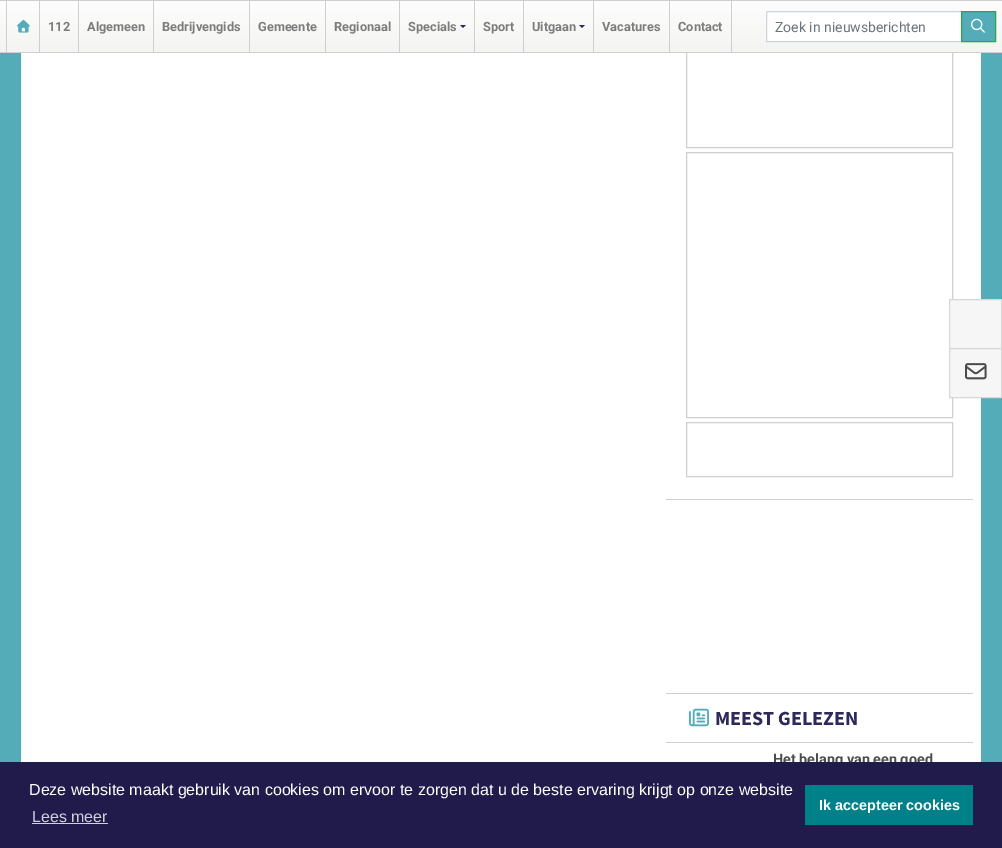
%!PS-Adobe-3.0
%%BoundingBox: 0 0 1002 848
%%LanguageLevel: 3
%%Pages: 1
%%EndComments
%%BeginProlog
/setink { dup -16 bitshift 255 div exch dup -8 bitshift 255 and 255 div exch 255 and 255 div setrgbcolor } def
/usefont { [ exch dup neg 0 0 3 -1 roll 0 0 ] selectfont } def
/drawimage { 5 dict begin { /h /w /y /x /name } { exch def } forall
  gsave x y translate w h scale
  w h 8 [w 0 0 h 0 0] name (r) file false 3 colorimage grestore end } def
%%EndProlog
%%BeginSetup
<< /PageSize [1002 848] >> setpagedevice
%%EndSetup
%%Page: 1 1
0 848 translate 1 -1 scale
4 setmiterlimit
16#FFFFFF setink
0 0 1002 848 rectfill
gsave 0 53 moveto 1002 53 lineto 1002 762 lineto 0 762 lineto closepath clip newpath
<< /ShadingType 2 /ColorSpace /DeviceRGB /Coords [501 -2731 501 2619] /Extend [true true] /Function << /FunctionType 3 /Domain [0 1] /Functions [<< /FunctionType 2 /Domain [0 1] /C0 [0.176 0.165 0.357] /C1 [0.325 0.675 0.722] /N 1 >> << /FunctionType 2 /Domain [0 1] /C0 [0.325 0.675 0.722] /C1 [0.325 0.675 0.722] /N 1 >>] /Bounds [0.07] /Encode [0 1 0 1] >> >> shfill grestore
21 53 960 709 rectfill
16#CFCFCF setink
686.5 -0.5 266 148 rectstroke
gsave 0 1 moveto 1002 1 lineto 1002 52 lineto 0 52 lineto closepath clip newpath
<< /ShadingType 2 /ColorSpace /DeviceRGB /Coords [501 1 501 52] /Extend [true true] /Function << /FunctionType 2 /Domain [0 1] /C0 [0.992 0.992 0.992] /C1 [0.957 0.957 0.949] /N 1 >> >> shfill grestore
[
    [0 0 1002 1 16#CFCFCF]
    [0 52 1002 1 16#CFCFCF]
    [39 1 1 51 16#CFCFCF]
    [6 1 1 51 16#CFCFCF]
] { aload pop setink rectfill } forall
(img1.raw) 17 19 13 14 drawimage
78 1 1 51 rectfill
/Roboto-Bold 12.75 usefont
16#7C7C7C setink
48 31 moveto (112) show
16#CFCFCF setink
153 1 1 51 rectfill
16#7C7C7C setink
87 31 moveto (Algemeen) show
16#CFCFCF setink
249 1 1 51 rectfill
16#7C7C7C setink
162 31 moveto (Bedrijvengids) show
16#CFCFCF setink
325 1 1 51 rectfill
16#7C7C7C setink
258 31 moveto (Gemeente) show
16#CFCFCF setink
399 1 1 51 rectfill
16#7C7C7C setink
334 31 moveto (Regionaal) show
16#CFCFCF setink
474 1 1 51 rectfill
16#7C7C7C setink
408 31 moveto (Specials) show
16#2D2A5B setink
460 25 moveto 466 25 lineto 463 28 lineto closepath fill
16#CFCFCF setink
523 1 1 51 rectfill
16#7C7C7C setink
483 31 moveto (Sport) show
16#CFCFCF setink
593 1 1 51 rectfill
16#7C7C7C setink
532 31 moveto (Uitgaan) show
16#2D2A5B setink
579 25 moveto 585 25 lineto 582 28 lineto closepath fill
16#CFCFCF setink
669 1 1 51 rectfill
16#7C7C7C setink
602 31 moveto (Vacatures) show
16#CFCFCF setink
731 1 1 51 rectfill
16#7C7C7C setink
678 31 moveto (Contact) show
16#FFFFFF setink
766.5 11.5 moveto 961.5 11.5 lineto 961.5 41.5 lineto 766.5 41.5 lineto closepath gsave fill grestore
16#CED4DA setink
stroke
/Roboto-Regular 14 usefont
16#6C757D setink
775 32 moveto (Zoek in nieuwsberichten) show
16#53ACB8 setink
961.5 11.5 moveto 995.5 11.5 lineto 995.5 41.5 lineto 961.5 41.5 lineto closepath gsave fill grestore
16#28A745 setink
stroke
(img2.raw) 971 18 14 15 drawimage
16#CFCFCF setink
686.5 152.5 266 265 rectstroke
16#F6F6F6 setink
949.5 299.5 moveto 1001.5 299.5 lineto 1001.5 348.5 lineto 949.5 348.5 lineto closepath gsave fill grestore
16#D7D7D7 setink
stroke
16#F6F6F6 setink
949.5 348.5 moveto 1001.5 348.5 lineto 1001.5 397.5 lineto 949.5 397.5 lineto closepath gsave fill grestore
16#D7D7D7 setink
stroke
(img3.raw) 965 363 22 17 drawimage
16#CFCFCF setink
666 499 307 1 rectfill
686.5 422.5 266 54 rectstroke
666 693 307 1 rectfill
666 742 307 1 rectfill
(img4.raw) 689 708 20 19 drawimage
/SourceSansPro-Bold 20 usefont
16#2D2A5B setink
715 725 moveto (MEEST GELEZEN) show
/Roboto-Bold 14.4 usefont
16#4C4B4B setink
773 764 moveto (Het belang van een goed) show
16#201B4A setink
0 762 1002 86 rectfill
/LiberationSans-Regular 16 usefont
16#FFFFFF setink
29 795 moveto (Deze website maakt gebruik van cookies om ervoor te zorgen dat u de beste ervaring krijgt op onze website) show
16#D2D1DB setink
32 822 moveto (Lees meer) show
32 823 76 1 rectfill
16#00818A setink
805 785 168 40 rectfill
/LiberationSans-Bold 14.4 usefont
16#FFFFFF setink
819 810 moveto (Ik accepteer cookies) show
showpage
%%EOF
